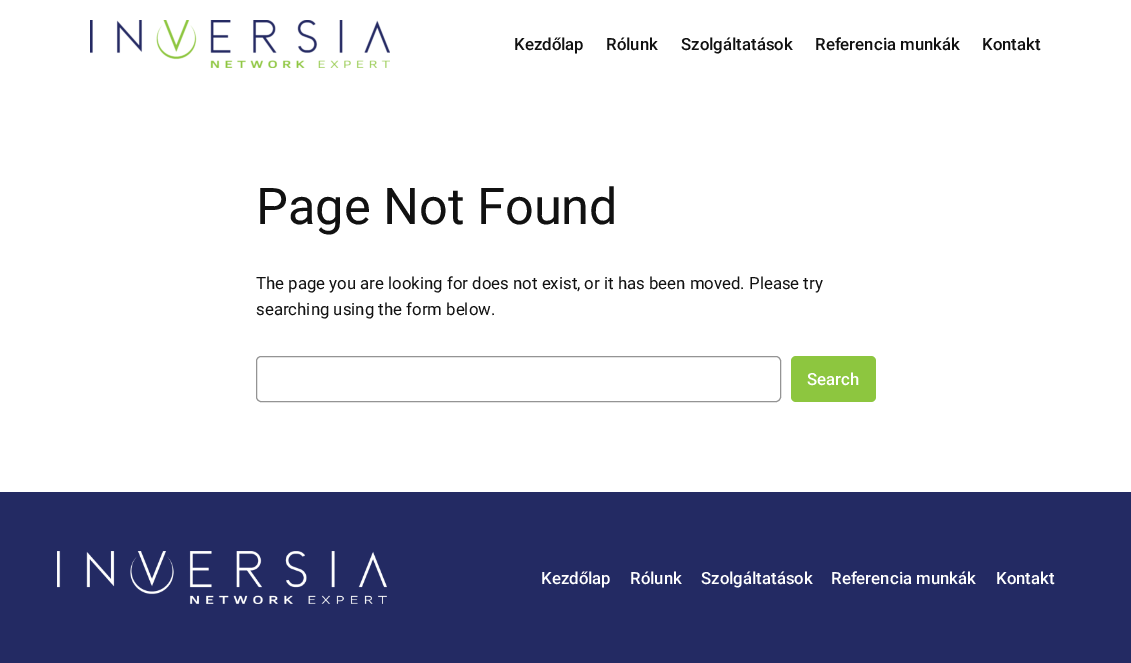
%!PS-Adobe-3.0
%%BoundingBox: 0 0 1131 663
%%LanguageLevel: 3
%%Pages: 1
%%EndComments
%%BeginProlog
/setink { dup -16 bitshift 255 div exch dup -8 bitshift 255 and 255 div exch 255 and 255 div setrgbcolor } def
/usefont { [ exch dup neg 0 0 3 -1 roll 0 0 ] selectfont } def
/rrect { 5 dict begin { /r /h /w /y /x } { exch def } forall
  x r add y moveto x w add y 2 copy h add r arct x w add y h add x 1 index r arct
  x y h add x y r arct x y 2 copy exch w add exch r arct closepath end } def
/drawimage { 5 dict begin { /h /w /y /x /name } { exch def } forall
  gsave x y translate w h scale
  w h 8 [w 0 0 h 0 0] name (r) file false 3 colorimage grestore end } def
%%EndProlog
%%BeginSetup
<< /PageSize [1131 663] >> setpagedevice
%%EndSetup
%%Page: 1 1
0 663 translate 1 -1 scale
4 setmiterlimit
16#FFFFFF setink
0 0 1131 663 rectfill
(img1.raw) 90 20 300 48 drawimage
/Roboto-Medium 16.8 usefont
16#111111 setink
[
    [(Kezdőlap) 514 50]
    [(Rólunk) 606 50]
    [(Szolgáltatások) 681 50]
    [(Referencia munkák) 815 50]
    [(Kontakt) 982 50]
] { aload pop moveto show } forall
/Roboto-Regular 50.5 usefont
256 224 moveto (Page Not Found) show
/Roboto-Regular 16.8 usefont
256 289 moveto (The page you are looking for does not exist, or it has been moved. Please try) show
256 315 moveto (searching using the form below.) show
16#949494 setink
256.5 356.5 524 45 4.5 rrect stroke
16#8DC63F setink
791 356 85 46 5 rrect fill
/Roboto-Medium 16.8 usefont
16#FFFFFF setink
807 385 moveto (Search) show
16#232A63 setink
0 492 1131 171 rectfill
(img2.raw) 57 551 330 53 drawimage
16#FFFFFF setink
[
    [(Kezdőlap) 541 584]
    [(Rólunk) 630 584]
    [(Szolgáltatások) 701 584]
    [(Referencia munkák) 831 584]
    [(Kontakt) 996 584]
] { aload pop moveto show } forall
showpage
%%EOF
